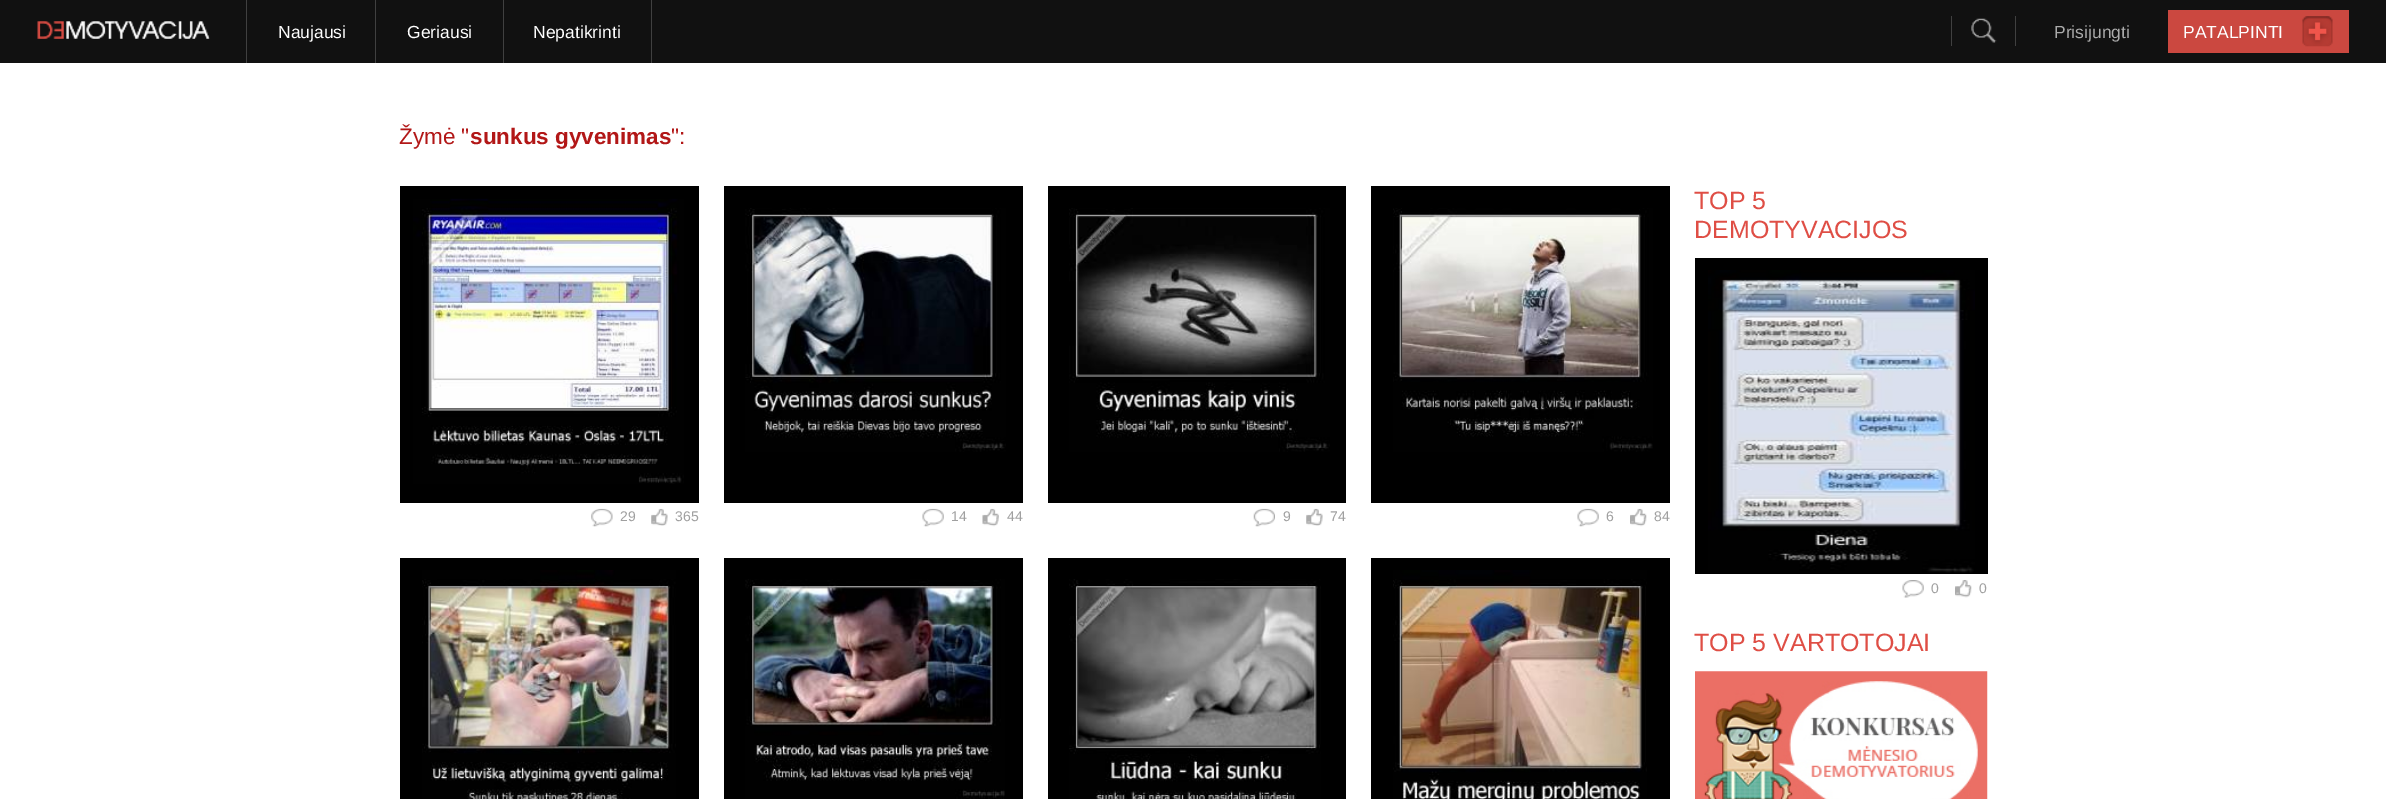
%!PS-Adobe-3.0
%%BoundingBox: 0 0 2386 799
%%LanguageLevel: 3
%%Pages: 1
%%EndComments
%%BeginProlog
/setink { dup -16 bitshift 255 div exch dup -8 bitshift 255 and 255 div exch 255 and 255 div setrgbcolor } def
/usefont { [ exch dup neg 0 0 3 -1 roll 0 0 ] selectfont } def
/drawimage { 5 dict begin { /h /w /y /x /name } { exch def } forall
  gsave x y translate w h scale
  w h 8 [w 0 0 h 0 0] name (r) file false 3 colorimage grestore end } def
%%EndProlog
%%BeginSetup
<< /PageSize [2386 799] >> setpagedevice
%%EndSetup
%%Page: 1 1
0 799 translate 1 -1 scale
4 setmiterlimit
16#FFFFFF setink
0 0 2386 799 rectfill
16#111111 setink
0 0 2386 63 rectfill
(img1.raw) 37 21 173 18 drawimage
16#404040 setink
246 0 1 63 rectfill
375 0 1 63 rectfill
/LiberationSans-Regular 17.5 usefont
16#FFFFFF setink
278 38 moveto (Naujausi) show
16#404040 setink
503 0 1 63 rectfill
16#FFFFFF setink
407 38 moveto (Geriausi) show
16#404040 setink
651 0 1 63 rectfill
16#FFFFFF setink
533 38 moveto (Nepatikrinti) show
(img2.raw) 1971 18 26 25 drawimage
16#404040 setink
2015 16 1 30 rectfill
1951 16 1 30 rectfill
16#ABABAB setink
2054 38 moveto (Prisijungti) show
16#CB4840 setink
2168 10 181 43 rectfill
16#FFFFFF setink
2183 38 moveto (PATALPINTI) show
(img3.raw) 2302 16 31 31 drawimage
/LiberationSans-Regular 22.5 usefont
16#B21717 setink
399 144 moveto (Žymė ") show
/LiberationSans-Bold 22.5 usefont
470 144 moveto (sunkus gyvenimas) show
/LiberationSans-Regular 22.5 usefont
671 144 moveto (":) show
16#000000 setink
400 186 299 317 rectfill
(img4.raw) 413 198 271 286 drawimage
(img5.raw) 591 508 22 19 drawimage
/LiberationSans-Regular 14 usefont
16#A0A0A0 setink
620 521 moveto (29) show
(img6.raw) 651 508 17 18 drawimage
675 521 moveto (365) show
16#000000 setink
724 186 299 317 rectfill
(img7.raw) 745 208 261 244 drawimage
(img8.raw) 922 508 22 19 drawimage
16#A0A0A0 setink
951 521 moveto (14) show
(img9.raw) 982 508 17 19 drawimage
1007 521 moveto (44) show
16#000000 setink
1048 186 298 317 rectfill
(img10.raw) 1069 208 261 244 drawimage
(img11.raw) 1253 508 22 19 drawimage
16#A0A0A0 setink
1283 521 moveto (9) show
(img6.raw) 1306 508 17 18 drawimage
1330 521 moveto (74) show
16#000000 setink
1371 186 299 317 rectfill
(img12.raw) 1393 208 260 244 drawimage
(img13.raw) 1577 508 22 19 drawimage
16#A0A0A0 setink
1606 521 moveto (6) show
(img14.raw) 1630 508 17 19 drawimage
1654 521 moveto (84) show
16#000000 setink
400 558 299 241 rectfill
(img15.raw) 422 570 254 229 drawimage
724 558 299 241 rectfill
(img16.raw) 745 579 260 220 drawimage
1048 558 298 241 rectfill
(img17.raw) 1069 579 252 220 drawimage
1371 558 299 241 rectfill
(img18.raw) 1393 570 254 229 drawimage
/LiberationSans-Regular 25 usefont
16#DF4E45 setink
1694 209 moveto (TOP 5) show
1694 238 moveto (DEMOTYVACIJOS) show
16#000000 setink
1695 258 293 316 rectfill
(img19.raw) 1708 270 267 303 drawimage
(img20.raw) 1902 580 22 18 drawimage
/LiberationSans-Regular 14 usefont
16#A0A0A0 setink
1931 593 moveto (0) show
(img21.raw) 1955 580 17 18 drawimage
1979 593 moveto (0) show
/LiberationSans-Regular 25 usefont
16#DF4E45 setink
1694 651 moveto (TOP 5 VARTOTOJAI) show
(img22.raw) 1695 671 293 128 drawimage
showpage
%%EOF
